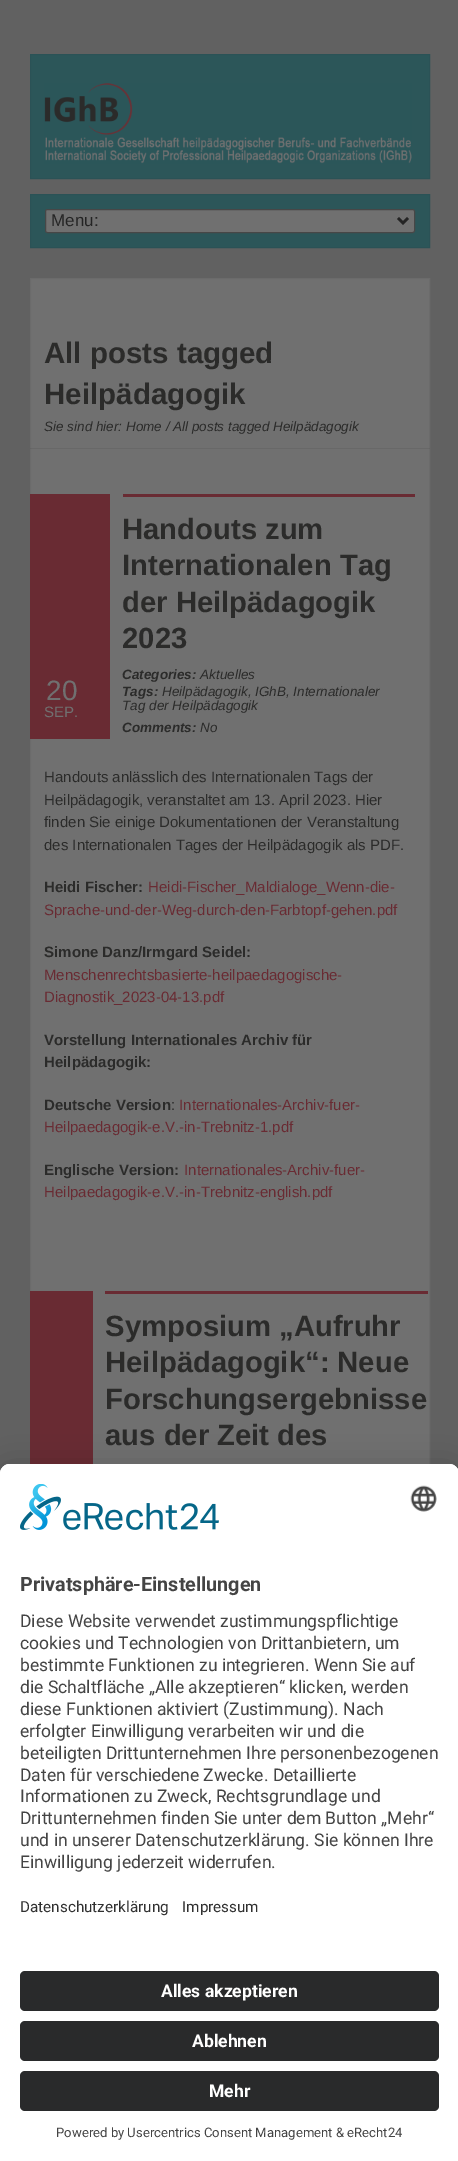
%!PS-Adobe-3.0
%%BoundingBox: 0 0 458 2161
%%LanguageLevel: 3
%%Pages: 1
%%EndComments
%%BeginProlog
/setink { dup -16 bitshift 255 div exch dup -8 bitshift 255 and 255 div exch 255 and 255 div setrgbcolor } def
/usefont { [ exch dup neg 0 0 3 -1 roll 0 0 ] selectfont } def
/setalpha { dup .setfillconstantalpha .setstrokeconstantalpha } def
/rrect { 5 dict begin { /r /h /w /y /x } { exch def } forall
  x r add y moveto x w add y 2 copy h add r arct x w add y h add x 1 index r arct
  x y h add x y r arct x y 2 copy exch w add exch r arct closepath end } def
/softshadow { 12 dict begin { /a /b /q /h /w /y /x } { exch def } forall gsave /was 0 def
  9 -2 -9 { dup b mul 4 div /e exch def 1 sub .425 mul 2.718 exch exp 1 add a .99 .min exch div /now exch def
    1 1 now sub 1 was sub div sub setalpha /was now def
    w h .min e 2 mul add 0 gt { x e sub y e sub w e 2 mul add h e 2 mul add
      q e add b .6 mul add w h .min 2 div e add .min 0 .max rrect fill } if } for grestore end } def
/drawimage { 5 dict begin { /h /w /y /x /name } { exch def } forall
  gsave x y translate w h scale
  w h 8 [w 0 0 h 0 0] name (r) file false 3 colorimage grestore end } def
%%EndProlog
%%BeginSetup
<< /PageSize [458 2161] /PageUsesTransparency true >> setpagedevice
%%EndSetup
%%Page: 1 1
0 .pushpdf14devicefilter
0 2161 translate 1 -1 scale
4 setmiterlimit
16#616161 setink
0 0 458 2161 rectfill
16#2C5659 setink
30.5 54.5 moveto 429.5 54.5 lineto 429.5 178.5 lineto 30.5 178.5 lineto closepath gsave fill grestore
16#2B5256 setink
stroke
(img1.raw) 44 83 368 81 drawimage
16#2C5659 setink
30.5 194.5 moveto 429.5 194.5 lineto 429.5 247.5 lineto 30.5 247.5 lineto closepath gsave fill grestore
16#2B5256 setink
stroke
16#707070 setink
45.5 209.5 369 23 2 rrect gsave fill grestore
16#474747 setink
stroke
16#242424 setink
2.5 setlinewidth
398 218 moveto 403 223 lineto 408 218 lineto stroke
/LiberationSans-Regular 17 usefont
51 226 moveto (Menu:) show
16#707070 setink
31 279 398 1185 rectfill
16#6B6B6B setink
1 setlinewidth
30.5 278.5 399 1771 rectstroke
/LiberationSans-Bold 29.5 usefont
16#2B2B2A setink
44 363 moveto (All posts tagged) show
44 404 moveto (Heilpädagogik) show
/LiberationSans-Italic 13.5 usefont
44 431 moveto (Sie sind hier: Home / All posts tagged Heilpädagogik) show
0.1 setalpha
16#242424 setink
30 448 400 1 rectfill
1 setalpha
16#692B33 setink
30 494 80 245 rectfill
/LiberationSans-Regular 28 usefont
16#707070 setink
46 700 moveto (20) show
/LiberationSans-Regular 15 usefont
44 717 moveto (SEP.) show
16#692B33 setink
123 494 292 3 rectfill
/LiberationSans-Bold 29.25 usefont
16#2B2B2A setink
[
    [(Handouts zum) 122 539]
    [(Internationalen Tag) 122 575]
    [(der Heilpädagogik) 122 612]
    [(2023) 122 648]
] { aload pop moveto show } forall
/LiberationSans-BoldItalic 13.5 usefont
122 679 moveto (Categories:) show
/LiberationSans-Italic 13.5 usefont
200 679 moveto (Aktuelles) show
/LiberationSans-BoldItalic 13.5 usefont
122 696 moveto (Tags:) show
/LiberationSans-Italic 13.5 usefont
162 696 moveto (Heilpädagogik, IGhB, Internationaler) show
122 710 moveto (Tag der Heilpädagogik) show
/LiberationSans-BoldItalic 13.5 usefont
122 732 moveto (Comments:) show
/LiberationSans-Italic 13.5 usefont
200 732 moveto (No) show
/LiberationSans-Regular 15 usefont
[
    [(Handouts anlässlich des Internationalen Tags der) 44 782]
    [(Heilpädagogik, veranstaltet am 13. April 2023. Hier) 44 805]
    [(finden Sie einige Dokumentationen der Veranstaltung) 44 827]
    [(des Internationalen Tages der Heilpädagogik als PDF.) 44 850]
] { aload pop moveto show } forall
/LiberationSans-Bold 15 usefont
44 892 moveto (Heidi Fischer:) show
/LiberationSans-Regular 15 usefont
16#692B33 setink
148 892 moveto (Heidi-Fischer_Maldialoge_Wenn-die-) show
44 915 moveto (Sprache-und-der-Weg-durch-den-Farbtopf-gehen.pdf) show
/LiberationSans-Bold 15 usefont
16#2B2B2A setink
44 957 moveto (Simone Danz/Irmgard Seidel:) show
/LiberationSans-Regular 15 usefont
16#692B33 setink
44 980 moveto (Menschenrechtsbasierte-heilpaedagogische-) show
44 1002 moveto (Diagnostik_2023-04-13.pdf) show
/LiberationSans-Bold 15 usefont
16#2B2B2A setink
[
    [(Vorstellung Internationales Archiv für) 44 1045]
    [(Heilpädagogik:) 44 1067]
    [(Deutsche Version) 44 1110]
] { aload pop moveto show } forall
/LiberationSans-Regular 15 usefont
171 1110 moveto (:) show
16#692B33 setink
179 1110 moveto (Internationales-Archiv-fuer-) show
44 1132 moveto (Heilpaedagogik-e.V.-in-Trebnitz-1.pdf) show
/LiberationSans-Bold 15 usefont
16#2B2B2A setink
44 1175 moveto (Englische Version:) show
/LiberationSans-Regular 15 usefont
16#692B33 setink
184 1175 moveto (Internationales-Archiv-fuer-) show
44 1197 moveto (Heilpaedagogik-e.V.-in-Trebnitz-english.pdf) show
30 1291 63 173 rectfill
105 1291 323 3 rectfill
/LiberationSans-Bold 29.25 usefont
16#2B2B2A setink
[
    [(Symposium „Aufruhr) 105 1336]
    [(Heilpädagogik“: Neue) 105 1372]
    [(Forschungsergebnisse) 105 1409]
    [(aus der Zeit des) 105 1445]
] { aload pop moveto show } forall
16#000000 setink
0 1470 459 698 10 16 0.22 softshadow
16#FFFFFF setink
10 1464 moveto 449 1464 lineto 454.5 1464 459 1468.5 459 1474 curveto 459 2161 lineto 0 2161 lineto 0 1474 lineto 0 1468.5 4.5 1464 10 1464 curveto closepath fill
10 1464 moveto 449 1464 lineto 454.5 1464 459 1468.5 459 1474 curveto 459 1956 lineto 0 1956 lineto 0 1474 lineto 0 1468.5 4.5 1464 10 1464 curveto closepath fill
(img2.raw) 20 1484 199 46 drawimage
(img3.raw) 410 1485 27 27 drawimage
/Roboto-Bold 19.75 usefont
16#444444 setink
20 1591 moveto (Privatsphäre-Einstellungen) show
/Roboto-Regular 17.5 usefont
[
    [(Diese Website verwendet zustimmungspflichtige) 20 1627]
    [(cookies und Technologien von Drittanbietern, um) 20 1649]
    [(bestimmte Funktionen zu integrieren. Wenn Sie auf) 20 1671]
    [(die Schaltfläche „Alle akzeptieren“ klicken, werden) 20 1693]
    [(diese Funktionen aktiviert \(Zustimmung\). Nach) 20 1715]
    [(erfolgter Einwilligung verarbeiten wir und die) 20 1737]
    [(beteiligten Drittunternehmen Ihre personenbezogenen) 20 1759]
    [(Daten für verschiedene Zwecke. Detaillierte) 20 1781]
    [(Informationen zu Zweck, Rechtsgrundlage und) 20 1802]
    [(Drittunternehmen finden Sie unter dem Button „Mehr“) 20 1824]
    [(und in unserer Datenschutzerklärung. Sie können Ihre) 20 1846]
    [(Einwilligung jederzeit widerrufen.) 20 1868]
] { aload pop moveto show } forall
/Roboto-Regular 15.25 usefont
16#303030 setink
20 1912 moveto (Datenschutzerklärung) show
182 1912 moveto (Impressum) show
16#292A2B setink
20 1971 419 40 5 rrect fill
/Roboto-Bold 17.5 usefont
16#FFFFFF setink
161 1997 moveto (Alles akzeptieren) show
16#292A2B setink
20 2021 419 40 5 rrect fill
16#FFFFFF setink
192 2047 moveto (Ablehnen) show
16#292A2B setink
20 2071 419 40 5 rrect fill
16#FFFFFF setink
209 2097 moveto (Mehr) show
/Roboto-Regular 13.1 usefont
16#444444 setink
56 2137 moveto (Powered by Usercentrics Consent Management & eRecht24) show
.poppdf14devicefilter showpage
%%EOF
